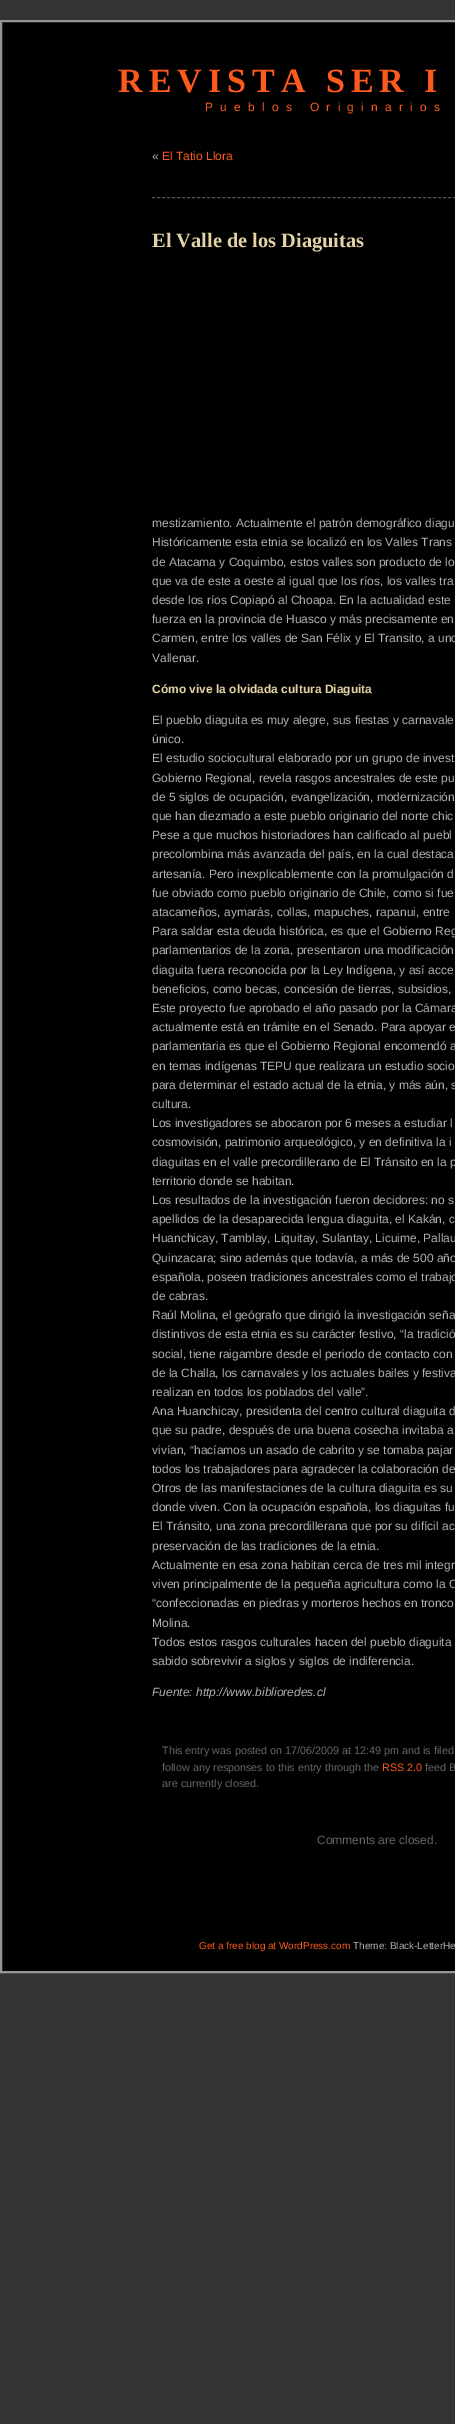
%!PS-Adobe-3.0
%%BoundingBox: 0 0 455 2424
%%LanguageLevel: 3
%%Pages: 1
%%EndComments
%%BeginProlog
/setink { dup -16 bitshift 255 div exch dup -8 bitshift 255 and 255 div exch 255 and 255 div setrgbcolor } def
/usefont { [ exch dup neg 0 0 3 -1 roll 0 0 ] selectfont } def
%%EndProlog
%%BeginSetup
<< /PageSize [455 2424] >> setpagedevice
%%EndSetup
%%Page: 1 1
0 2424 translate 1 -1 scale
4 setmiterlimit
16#333333 setink
0 0 455 2424 rectfill
16#000000 setink
1 21 moveto 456 21 lineto 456 1972 lineto 1 1972 lineto closepath gsave fill grestore
16#959596 setink
2 setlinewidth
stroke
/LiberationSerif-Bold 34 usefont
16#FD5A1E setink
118 92 moveto 6 0 (REVISTA SER I) ashow
/LiberationSans-Regular 12 usefont
205 111 moveto 7.25 0 (Pueblos Originarios) ashow
16#B0B0B0 setink
152 160 moveto («) show
16#FD5A1E setink
162 160 moveto (El Tatio Llora) show
16#555555 setink
1 setlinewidth
[3 2.02] 0 setdash
152 197.5 moveto 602 197.5 lineto stroke
/LiberationSerif-Bold 20.4 usefont
16#E4D3A6 setink
152 247 moveto (El Valle de los Diaguitas) show
/LiberationSans-Regular 12 usefont
16#B0B0B0 setink
[
    [(mestizamiento. Actualmente el patrón demográfico diagu) 152 527]
    [(Históricamente esta etnia se localizó en los Valles Trans) 152 546]
    [(de Atacama y Coquimbo, estos valles son producto de lo) 152 566]
    [(que va de este a oeste al igual que los ríos, los valles tra) 152 585]
    [(desde los ríos Copiapó al Choapa. En la actualidad este) 152 604]
    [(fuerza en la provincia de Huasco y más precisamente en) 152 623]
    [(Carmen, entre los valles de San Félix y El Transito, a uno) 152 642]
    [(Vallenar.) 152 662]
] { aload pop moveto show } forall
/LiberationSans-Bold 12 usefont
16#E4D3A6 setink
152 693 moveto (Cómo vive la olvidada cultura Diaguita) show
/LiberationSans-Regular 12 usefont
16#B0B0B0 setink
[
    [(El pueblo diaguita es muy alegre, sus fiestas y carnavale) 152 724]
    [(único.) 152 743]
    [(El estudio sociocultural elaborado por un grupo de invest) 152 762]
    [(Gobierno Regional, revela rasgos ancestrales de este pu) 152 782]
    [(de 5 siglos de ocupación, evangelización, modernización) 152 801]
    [(que han diezmado a este pueblo originario del norte chic) 152 820]
    [(Pese a que muchos historiadores han calificado al puebl) 152 839]
    [(precolombina más avanzada del país, en la cual destaca) 152 858]
    [(artesanía. Pero inexplicablemente con la promulgación d) 152 878]
    [(fue obviado como pueblo originario de Chile, como si fue) 152 897]
    [(atacameños, aymarás, collas, mapuches, rapanui, entre) 152 916]
    [(Para saldar esta deuda histórica, es que el Gobierno Reg) 152 935]
    [(parlamentarios de la zona, presentaron una modificación) 152 954]
    [(diaguita fuera reconocida por la Ley Indígena, y así acce) 152 974]
    [(beneficios, como becas, concesión de tierras, subsidios,) 152 993]
    [(Este proyecto fue aprobado el año pasado por la Cámara) 152 1012]
    [(actualmente está en trámite en el Senado. Para apoyar e) 152 1031]
    [(parlamentaria es que el Gobierno Regional encomendó a) 152 1050]
    [(en temas indígenas TEPU que realizara un estudio socio) 152 1070]
    [(para determinar el estado actual de la etnia, y más aún, s) 152 1089]
    [(cultura.) 152 1108]
    [(Los investigadores se abocaron por 6 meses a estudiar l) 152 1127]
    [(cosmovisión, patrimonio arqueológico, y en definitiva la i) 152 1146]
    [(diaguitas en el valle precordillerano de El Tránsito en la p) 152 1166]
    [(territorio donde se habitan.) 152 1185]
    [(Los resultados de la investigación fueron decidores: no s) 152 1204]
    [(apellidos de la desaparecida lengua diaguita, el Kakán, c) 152 1223]
    [(Huanchicay, Tamblay, Liquitay, Sulantay, Licuime, Pallau) 152 1242]
    [(Quinzacara; sino además que todavía, a más de 500 año) 152 1262]
    [(española, poseen tradiciones ancestrales como el trabajo) 152 1281]
    [(de cabras.) 152 1300]
    [(Raúl Molina, el geógrafo que dirigió la investigación seña) 152 1319]
    [(distintivos de esta etnia es su carácter festivo, “la tradició) 152 1338]
    [(social, tiene raigambre desde el periodo de contacto con) 152 1358]
    [(de la Challa, los carnavales y los actuales bailes y festiva) 152 1377]
    [(realizan en todos los poblados del valle”.) 152 1396]
    [(Ana Huanchicay, presidenta del centro cultural diaguita d) 152 1415]
    [(que su padre, después de una buena cosecha invitaba a) 152 1434]
    [(vivían, “hacíamos un asado de cabrito y se tomaba pajar) 152 1454]
    [(todos los trabajadores para agradecer la colaboración de) 152 1473]
    [(Otros de las manifestaciones de la cultura diaguita es su) 152 1492]
    [(donde viven. Con la ocupación española, los diaguitas fu) 152 1511]
    [(El Tránsito, una zona precordillerana que por su difícil ac) 152 1530]
    [(preservación de las tradiciones de la etnia.) 152 1550]
    [(Actualmente en esa zona habitan cerca de tres mil integr) 152 1569]
    [(viven principalmente de la pequeña agricultura como la C) 152 1588]
    [(“confeccionadas en piedras y morteros hechos en tronco) 152 1607]
    [(Molina.) 152 1627]
    [(Todos estos rasgos culturales hacen del pueblo diaguita) 152 1646]
    [(sabido sobrevivir a siglos y siglos de indiferencia.) 152 1665]
] { aload pop moveto show } forall
/LiberationSans-Italic 12 usefont
152 1696 moveto (Fuente: http://www.biblioredes.cl) show
/LiberationSans-Regular 10.8 usefont
16#666666 setink
162 1754 moveto (This entry was posted on 17/06/2009 at 12:49 pm and is filed) show
162 1771 moveto (follow any responses to this entry through the) show
16#FD5A1E setink
382 1771 moveto (RSS 2.0) show
16#666666 setink
425 1771 moveto (feed B) show
162 1787 moveto (are currently closed.) show
/LiberationSans-Regular 12 usefont
317 1844 moveto (Comments are closed.) show
/LiberationSans-Regular 10 usefont
16#FD5A1E setink
199 1949 moveto (Get a free blog at WordPress.com) show
16#B0B0B0 setink
353 1949 moveto (Theme: Black-LetterHe) show
showpage
%%EOF
